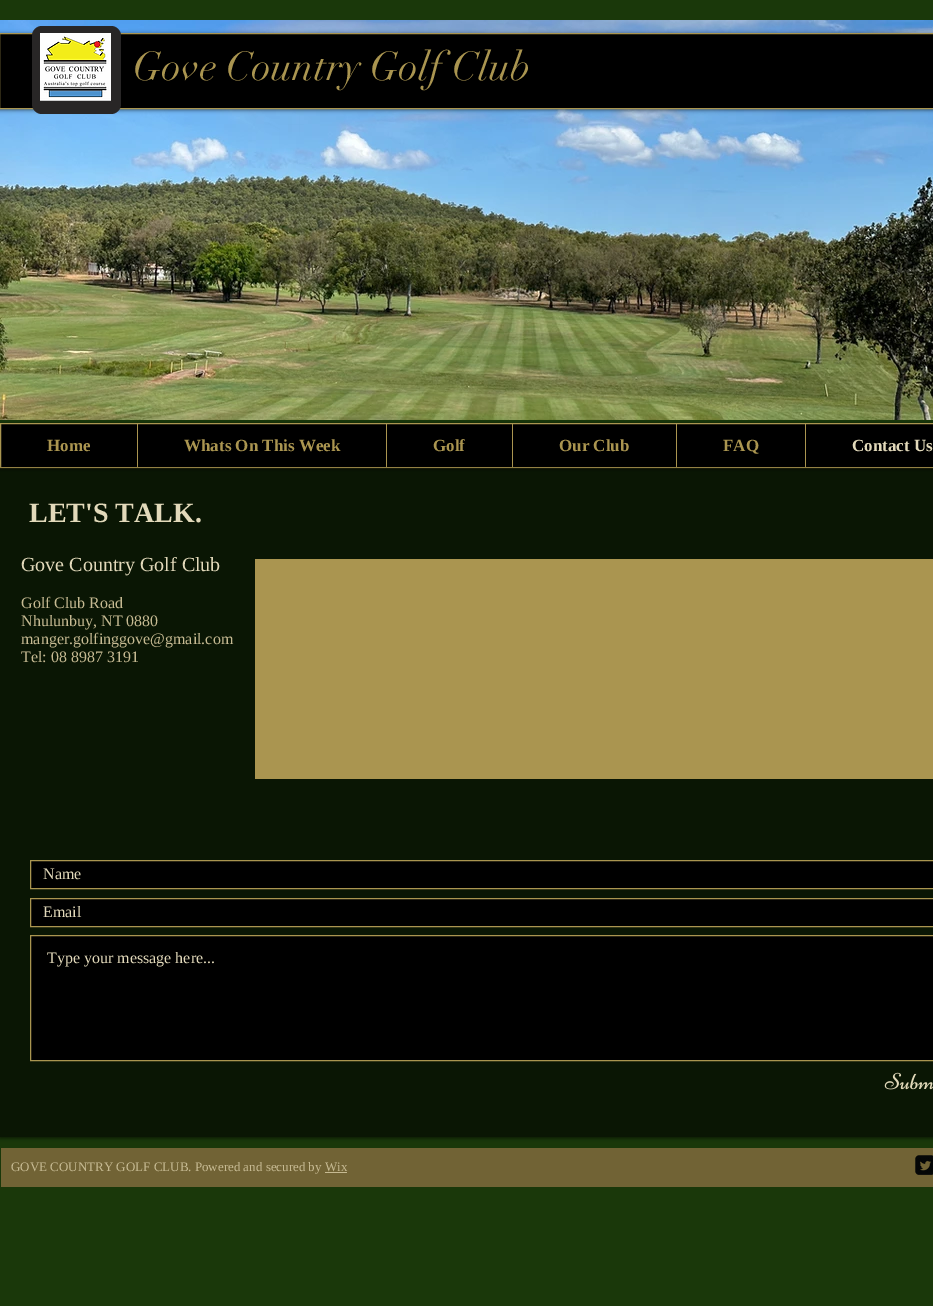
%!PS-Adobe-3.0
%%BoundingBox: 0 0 933 1306
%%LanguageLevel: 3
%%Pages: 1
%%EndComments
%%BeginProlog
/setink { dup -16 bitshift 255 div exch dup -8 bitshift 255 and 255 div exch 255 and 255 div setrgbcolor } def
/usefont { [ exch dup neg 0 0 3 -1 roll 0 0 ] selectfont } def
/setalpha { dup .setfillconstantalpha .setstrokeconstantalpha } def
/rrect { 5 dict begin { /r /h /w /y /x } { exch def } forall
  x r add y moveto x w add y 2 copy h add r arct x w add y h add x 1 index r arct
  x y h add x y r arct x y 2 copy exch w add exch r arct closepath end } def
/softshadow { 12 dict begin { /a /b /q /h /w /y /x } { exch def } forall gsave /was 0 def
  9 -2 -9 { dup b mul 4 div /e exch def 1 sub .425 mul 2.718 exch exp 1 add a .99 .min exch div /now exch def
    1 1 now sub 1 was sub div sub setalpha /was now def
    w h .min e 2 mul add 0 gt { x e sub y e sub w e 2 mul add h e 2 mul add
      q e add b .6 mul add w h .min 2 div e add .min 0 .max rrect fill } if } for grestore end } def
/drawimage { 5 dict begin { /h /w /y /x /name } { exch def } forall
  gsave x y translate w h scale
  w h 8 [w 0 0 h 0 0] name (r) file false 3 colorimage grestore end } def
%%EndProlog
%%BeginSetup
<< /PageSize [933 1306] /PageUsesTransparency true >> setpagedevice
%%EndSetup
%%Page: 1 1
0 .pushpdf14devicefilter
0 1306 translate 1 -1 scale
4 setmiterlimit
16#1A380A setink
0 0 933 1306 rectfill
(img1.raw) 0 20 933 400 drawimage
16#000000 setink
-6 34 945 76 0 2 0.6 softshadow
-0.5 33.5 moveto 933.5 33.5 lineto 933.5 108.5 lineto -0.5 108.5 lineto closepath gsave fill grestore
16#AA9550 setink
stroke
16#282626 setink
32 26 89 88 10 rrect fill
(img2.raw) 40 33 71 68 drawimage
/didot-Regular 40 usefont
16#AA9550 setink
133 80 moveto (Gove Country Golf Club) show
16#000000 setink
0 424 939 45 0 2 0.6 softshadow
0.5 423.5 moveto 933.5 423.5 lineto 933.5 467.5 lineto 0.5 467.5 lineto closepath gsave fill grestore
16#AA9550 setink
stroke
/LiberationSerif-Bold 17 usefont
47 451 moveto (Home) show
137 424 1 43 rectfill
184 451 moveto (Whats On This Week) show
386 424 1 43 rectfill
433 451 moveto (Golf) show
512 424 1 43 rectfill
559 451 moveto (Our Club) show
676 424 1 43 rectfill
723 451 moveto (FAQ) show
805 424 1 43 rectfill
16#E2D9BA setink
852 451 moveto (Contact Us) show
gsave
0 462 moveto 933 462 lineto 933 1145 lineto 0 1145 lineto closepath 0 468 moveto 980 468 lineto 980 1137 lineto 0 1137 lineto closepath eoclip newpath
16#000000 setink
0 469 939 669 0 2 0.6 softshadow
grestore
0.6 setalpha
16#000000 setink
0 468 933 669 rectfill
/LiberationSerif-Bold 28 usefont
1 setalpha
16#E2D9BA setink
29 522 moveto (LET'S TALK.) show
/LiberationSerif-Regular 20 usefont
21 571 moveto (Gove Country Golf Club) show
/LiberationSerif-Regular 16 usefont
16#C6BA92 setink
[
    [(Golf Club Road) 21 608]
    [(Nhulunbuy, NT 0880) 21 626]
    [(manger.golfinggove@gmail.com) 21 644]
    [(Tel: 08 8987 3191) 21 662]
] { aload pop moveto show } forall
16#AA9550 setink
255 559 678 220 rectfill
16#000000 setink
30.5 860.5 moveto 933.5 860.5 lineto 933.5 888.5 lineto 30.5 888.5 lineto closepath gsave fill grestore
16#AA9550 setink
stroke
16#E2D9BA setink
43 879 moveto (Name) show
16#000000 setink
30.5 898.5 moveto 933.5 898.5 lineto 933.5 926.5 lineto 30.5 926.5 lineto closepath gsave fill grestore
16#AA9550 setink
stroke
16#E2D9BA setink
43 917 moveto (Email) show
16#000000 setink
30.5 935.5 moveto 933.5 935.5 lineto 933.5 1060.5 lineto 30.5 1060.5 lineto closepath gsave fill grestore
16#AA9550 setink
stroke
16#E2D9BA setink
47 963 moveto (Type your message here...) show
(img3.raw) 884 1072 49 18 drawimage
16#716335 setink
1 1148 932 39 rectfill
(img4.raw) 915 1155 18 20 drawimage
/LiberationSerif-Regular 13 usefont
16#C6BA92 setink
11 1171 moveto (GOVE COUNTRY GOLF CLUB. Powered and secured by Wix) show
325 1172 22 1 rectfill
.poppdf14devicefilter showpage
%%EOF
